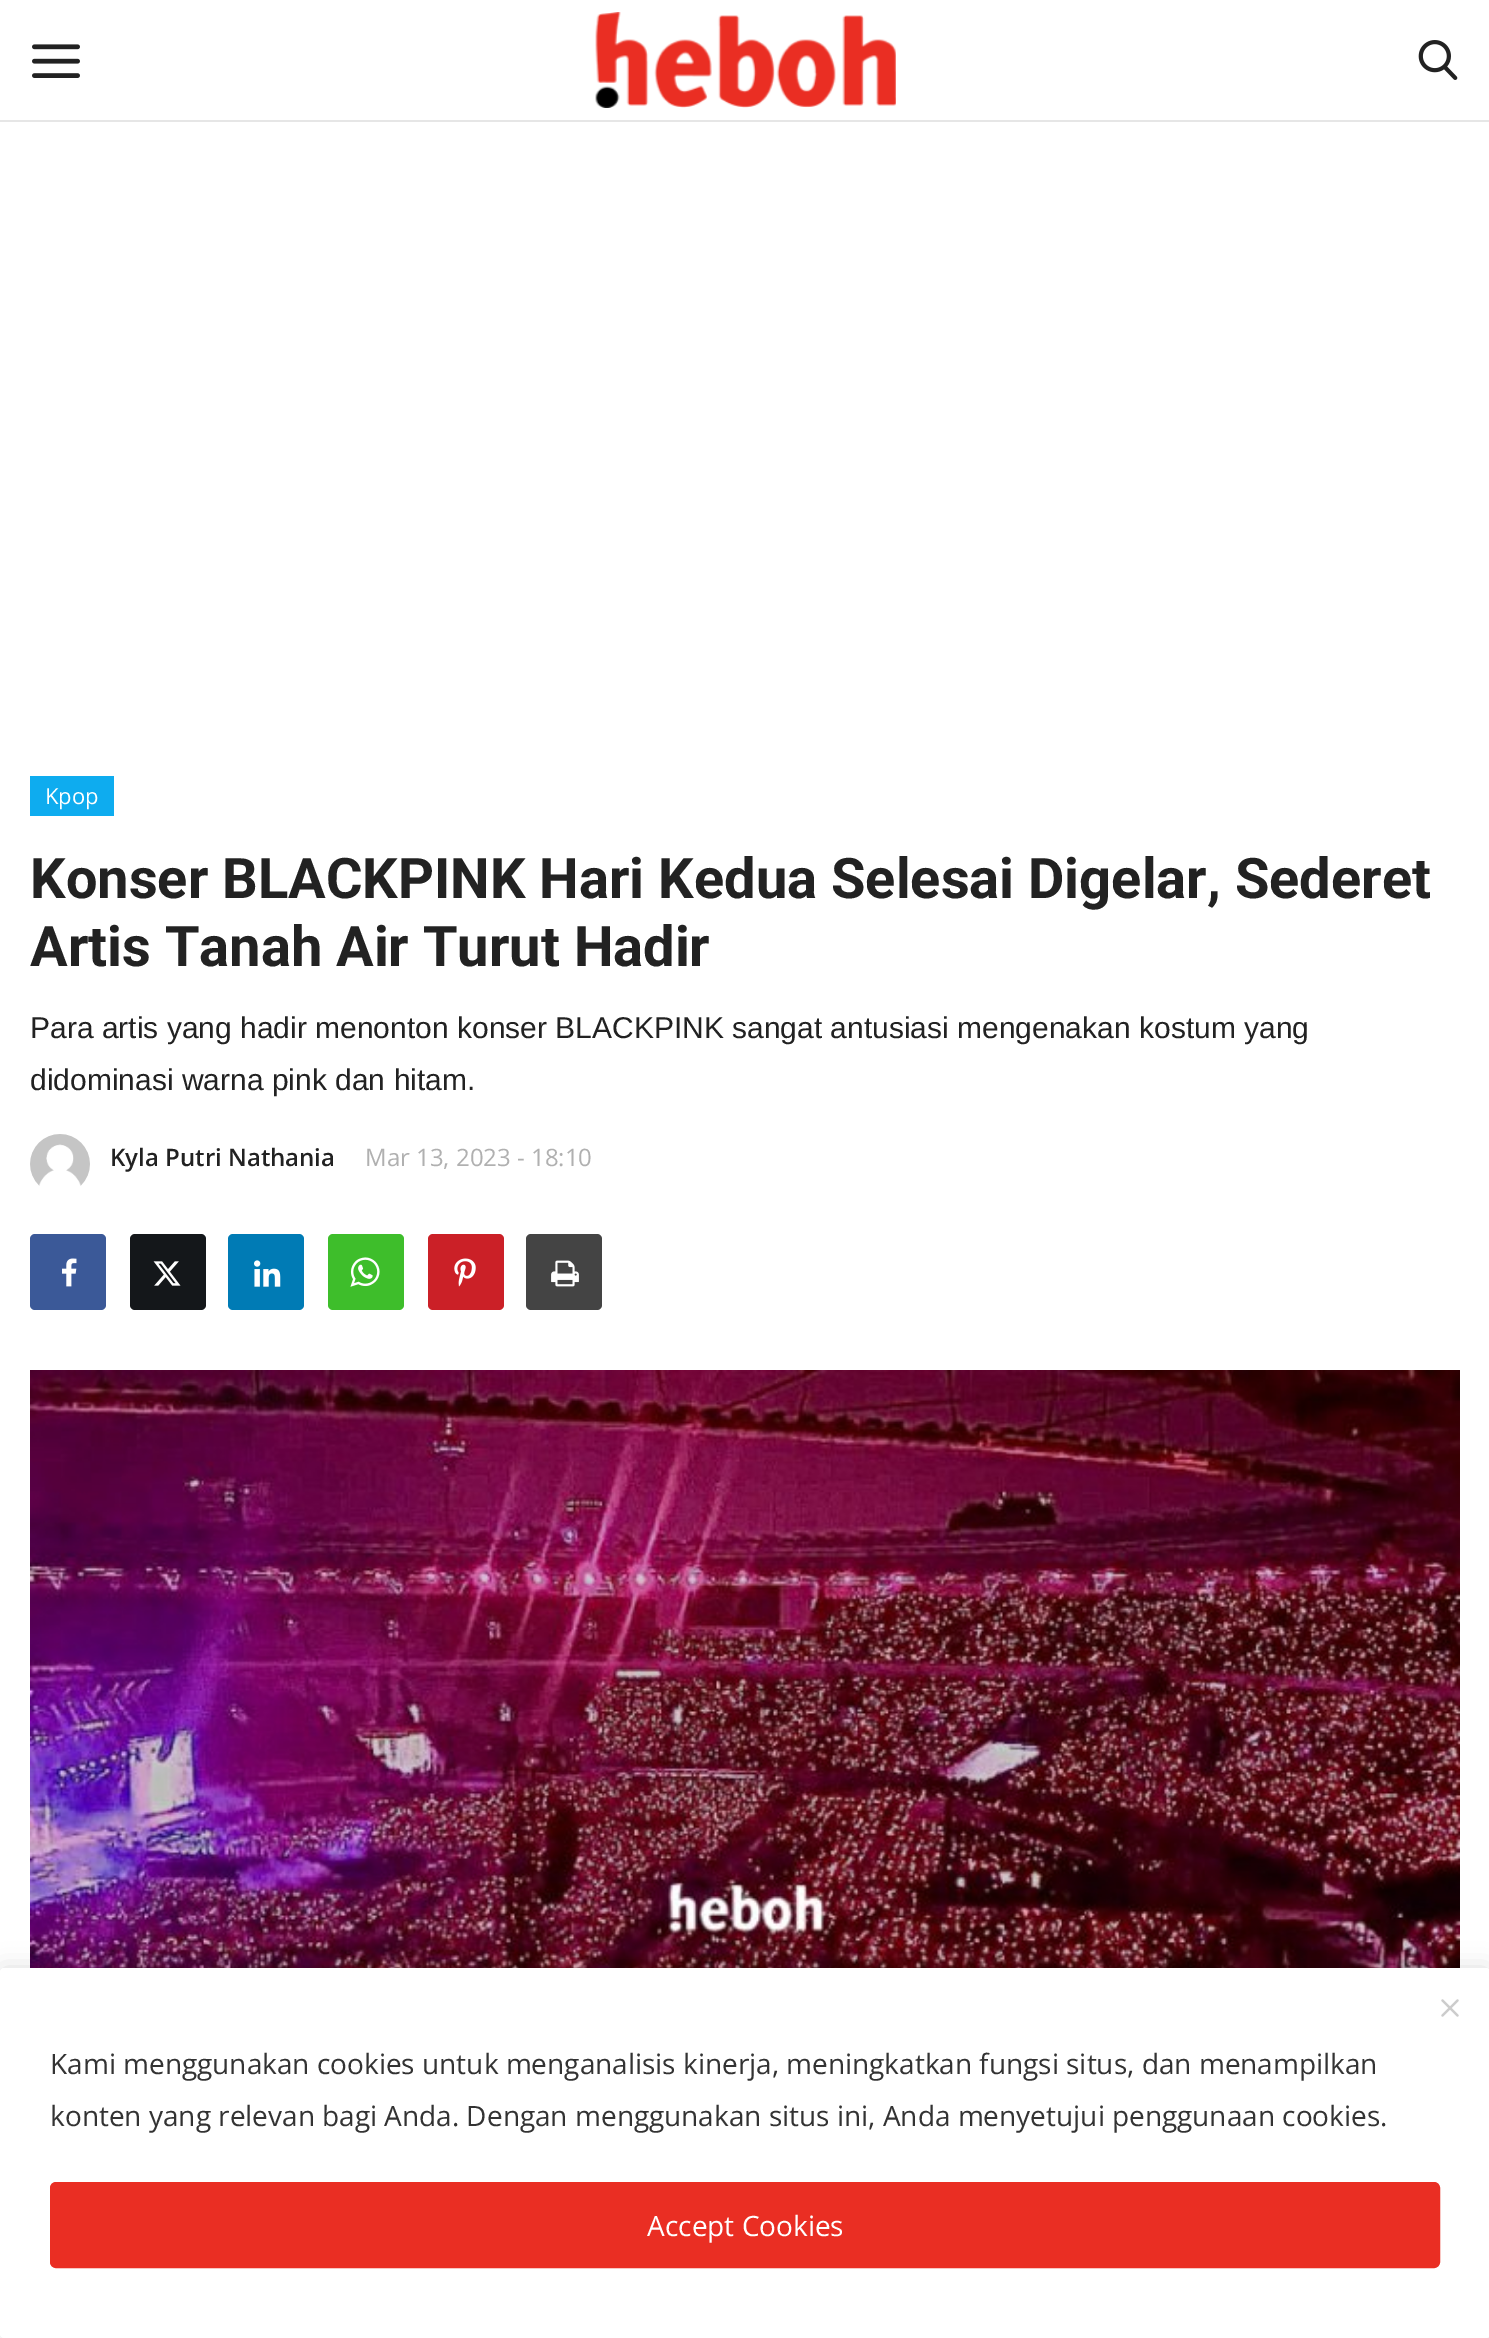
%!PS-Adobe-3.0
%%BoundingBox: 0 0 1489 2338
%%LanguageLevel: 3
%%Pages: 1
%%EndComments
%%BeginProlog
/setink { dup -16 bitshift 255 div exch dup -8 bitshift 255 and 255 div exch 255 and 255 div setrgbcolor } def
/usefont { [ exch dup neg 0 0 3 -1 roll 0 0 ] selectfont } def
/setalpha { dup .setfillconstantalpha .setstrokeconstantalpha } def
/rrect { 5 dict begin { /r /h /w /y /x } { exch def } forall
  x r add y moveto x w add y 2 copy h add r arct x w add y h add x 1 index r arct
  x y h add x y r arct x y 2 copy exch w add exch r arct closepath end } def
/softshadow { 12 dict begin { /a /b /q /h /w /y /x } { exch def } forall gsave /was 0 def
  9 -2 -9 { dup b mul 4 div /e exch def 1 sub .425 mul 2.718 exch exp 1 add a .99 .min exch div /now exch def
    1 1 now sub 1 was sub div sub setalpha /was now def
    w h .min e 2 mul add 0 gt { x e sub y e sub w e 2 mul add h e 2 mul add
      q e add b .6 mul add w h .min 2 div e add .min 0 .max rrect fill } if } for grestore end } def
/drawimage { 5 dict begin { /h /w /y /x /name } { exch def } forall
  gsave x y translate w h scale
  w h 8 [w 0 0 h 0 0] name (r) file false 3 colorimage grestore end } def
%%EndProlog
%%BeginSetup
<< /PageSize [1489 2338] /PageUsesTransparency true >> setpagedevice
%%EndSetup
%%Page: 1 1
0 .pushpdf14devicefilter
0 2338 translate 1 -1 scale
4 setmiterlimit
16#FFFFFF setink
0 0 1489 2338 rectfill
16#E6E6E6 setink
0 120 1489 2 rectfill
(img1.raw) 32 44 48 34 drawimage
(img2.raw) 595 12 301 96 drawimage
(img3.raw) 1418 40 40 40 drawimage
16#0EACEF setink
30 776 84 40 rectfill
/OpenSans-Regular 22 usefont
16#FFFFFF setink
45 804 moveto (Kpop) show
/Roboto-Bold 56 usefont
16#222222 setink
30 898 moveto (Konser BLACKPINK Hari Kedua Selesai Digelar, Sederet) show
30 966 moveto (Artis Tanah Air Turut Hadir) show
/LiberationSans-Regular 30 usefont
30 1038 moveto (Para artis yang hadir menonton konser BLACKPINK sangat antusiasi mengenakan kostum yang) show
30 1090 moveto (didominasi warna pink dan hitam.) show
(img4.raw) 30 1134 60 52 drawimage
/OpenSans-SemiBold 24 usefont
110 1166 moveto (Kyla Putri Nathania) show
/OpenSans-Regular 24 usefont
16#B0B0B0 setink
365 1166 moveto (Mar 13, 2023 - 18:10) show
16#3B5998 setink
30 1234 76 76 5 rrect fill
(img5.raw) 62 1258 15 29 drawimage
16#14171A setink
130 1234 76 76 5 rrect fill
(img6.raw) 153 1261 28 25 drawimage
16#007BB5 setink
228 1234 76 76 5 rrect fill
(img7.raw) 254 1260 27 27 drawimage
16#3EBE2B setink
328 1234 76 76 5 rrect fill
(img8.raw) 350 1257 30 30 drawimage
16#CB2027 setink
428 1234 76 76 5 rrect fill
(img9.raw) 454 1258 22 29 drawimage
16#444444 setink
526 1234 76 76 5 rrect fill
(img10.raw) 551 1260 28 27 drawimage
(img11.raw) 30 1370 1430 598 drawimage
16#000000 setink
0 1968 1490 370 4 12 0.14 softshadow
16#FFFFFF setink
0 1968 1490 370 4 rrect fill
(img12.raw) 1441 1999 18 18 drawimage
/OpenSans-Regular 28 usefont
16#333333 setink
50 2074 moveto (Kami menggunakan cookies untuk menganalisis kinerja, meningkatkan fungsi situs, dan menampilkan) show
50 2126 moveto (konten yang relevan bagi Anda. Dengan menggunakan situs ini, Anda menyetujui penggunaan cookies.) show
16#EA2E23 setink
51 2183 1388 84 5 rrect gsave fill grestore
2 setlinewidth
stroke
16#FFFFFF setink
647 2236 moveto (Accept Cookies) show
.poppdf14devicefilter showpage
%%EOF
